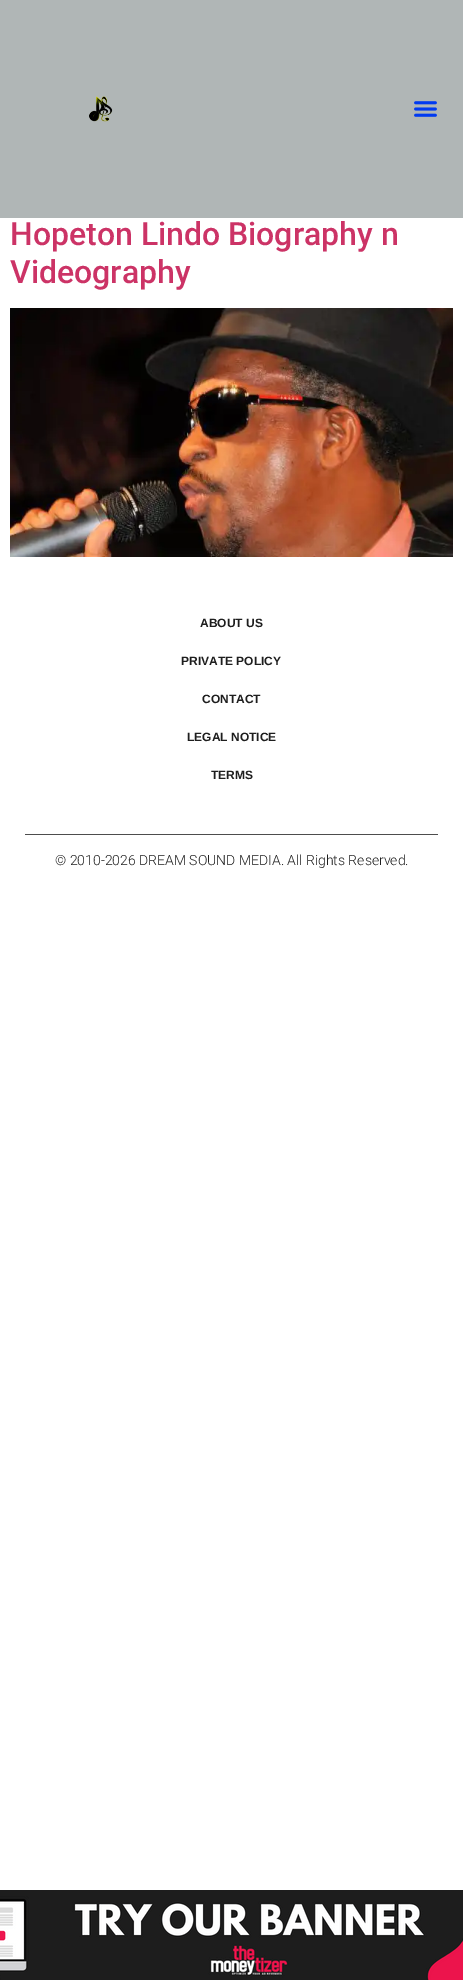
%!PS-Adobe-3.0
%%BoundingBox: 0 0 463 1980
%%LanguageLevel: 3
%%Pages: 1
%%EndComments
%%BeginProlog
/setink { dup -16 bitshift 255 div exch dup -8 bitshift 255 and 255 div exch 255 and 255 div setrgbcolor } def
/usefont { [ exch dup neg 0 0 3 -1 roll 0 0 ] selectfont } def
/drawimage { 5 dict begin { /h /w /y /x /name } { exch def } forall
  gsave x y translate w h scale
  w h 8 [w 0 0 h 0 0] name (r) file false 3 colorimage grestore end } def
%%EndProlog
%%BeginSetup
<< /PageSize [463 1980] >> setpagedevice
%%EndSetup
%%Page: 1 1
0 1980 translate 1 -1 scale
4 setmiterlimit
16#FFFFFF setink
0 0 463 1980 rectfill
16#B0B6B6 setink
0 0 463 218 rectfill
(img1.raw) 89 96 24 26 drawimage
(img2.raw) 414 101 23 16 drawimage
/Roboto-Medium 32 usefont
16#CC3366 setink
10 245 moveto (Hopeton Lindo Biography n) show
10 283 moveto (Videography) show
(img3.raw) 10 308 443 249 drawimage
/LiberationSans-Bold 12 usefont
16#1E1E1E setink
[
    [(ABOUT US) 200 627]
    [(PRIVATE POLICY) 181 665]
    [(CONTACT) 202 703]
    [(LEGAL NOTICE) 187 741]
    [(TERMS) 211 779]
] { aload pop moveto show } forall
16#4D4D4D setink
25 834 413 1 rectfill
/Roboto-Light 14 usefont
16#1E1E1E setink
55 865 moveto (© 2010-2026 DREAM SOUND MEDIA. All Rights Reserved.) show
(img4.raw) 0 1890 463 90 drawimage
showpage
%%EOF
